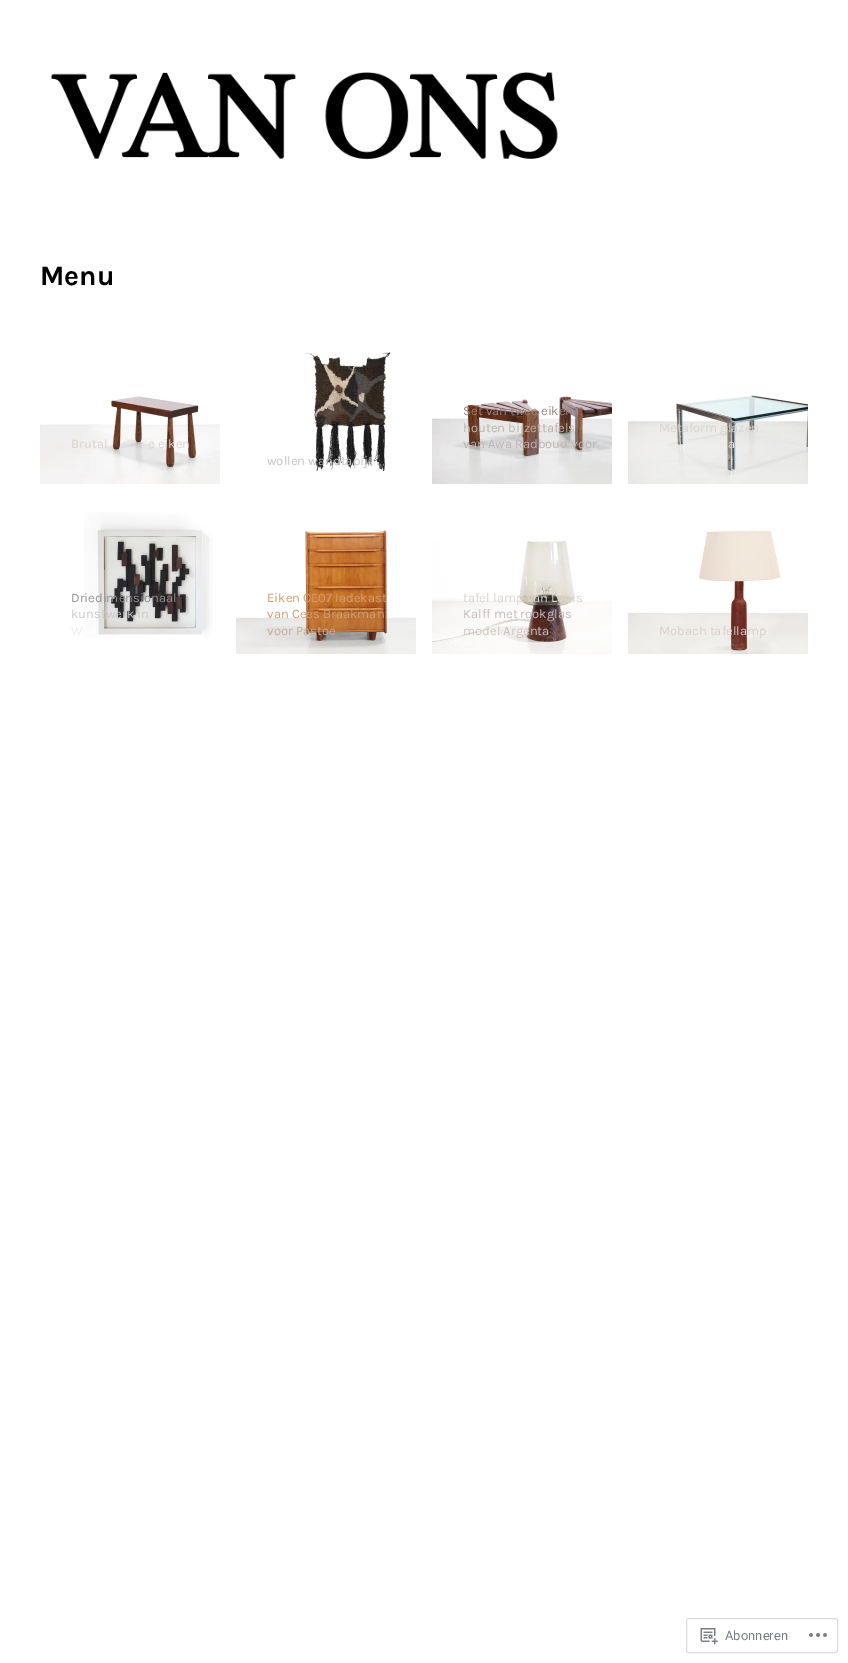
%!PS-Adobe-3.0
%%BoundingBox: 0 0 848 1663
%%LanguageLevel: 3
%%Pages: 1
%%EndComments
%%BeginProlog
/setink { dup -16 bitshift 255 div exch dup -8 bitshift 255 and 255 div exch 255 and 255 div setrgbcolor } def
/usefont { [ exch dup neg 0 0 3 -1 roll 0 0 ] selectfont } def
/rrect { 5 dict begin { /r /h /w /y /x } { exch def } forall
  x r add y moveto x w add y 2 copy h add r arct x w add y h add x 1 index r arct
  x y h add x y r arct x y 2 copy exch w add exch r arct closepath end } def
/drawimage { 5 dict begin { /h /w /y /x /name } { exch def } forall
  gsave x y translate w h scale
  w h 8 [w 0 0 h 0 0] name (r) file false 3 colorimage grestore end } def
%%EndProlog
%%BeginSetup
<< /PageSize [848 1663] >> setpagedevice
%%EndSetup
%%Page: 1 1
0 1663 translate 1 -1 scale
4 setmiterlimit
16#FFFFFF setink
0 0 848 1663 rectfill
(img1.raw) 50 72 508 88 drawimage
/Karla-Bold 28 usefont
16#000000 setink
40 285 moveto (Menu) show
(img2.raw) 40 396 180 88 drawimage
/Karla-Regular 13 usefont
16#DBD4D1 setink
71 448 moveto (Brutal) show
148 448 moveto (e eiken) show
(img3.raw) 432 395 180 89 drawimage
16#9C837D setink
463 415 moveto (Set van twee eiken) show
16#BFB2AB setink
463 432 moveto (houten bijzettafels) show
16#BEB5B3 setink
463 448 moveto (van Awa Radboud voor) show
(img4.raw) 628 394 180 90 drawimage
16#DBD4D1 setink
659 432 moveto (Metaform glazen) show
16#E2E2E0 setink
728 448 moveto (a) show
730 465 moveto (l) show
(img5.raw) 304 352 87 120 drawimage
16#C4C4C4 setink
267 465 moveto (wollen wandtapijt) show
(img6.raw) 84 512 129 126 drawimage
16#939091 setink
71 602 moveto (Driedimensionaal) show
16#CBCAC9 setink
71 618 moveto (kunstwerk in) show
16#EDEDEC setink
71 635 moveto (W) show
(img7.raw) 236 528 180 126 drawimage
16#D49C6D setink
267 602 moveto (Eiken CE07 ladekast) show
16#CF9D73 setink
267 618 moveto (van Cees Braakman) show
16#C5AD9D setink
267 635 moveto (voor Pastoe) show
(img8.raw) 432 540 180 114 drawimage
16#F6F4F1 setink
524 585 moveto (1) show
16#DBD4D1 setink
463 602 moveto (tafel lamp van Louis) show
16#C6BBBA setink
463 618 moveto (Kalff met rookglas) show
16#CEC4C0 setink
463 635 moveto (model Argenta) show
(img9.raw) 628 528 180 126 drawimage
16#DBD0CB setink
659 635 moveto (Mobach tafellamp) show
16#DDDDDF setink
686.5 1618.5 151 34 2.5 rrect stroke
(img10.raw) 700 1628 18 17 drawimage
/Roboto-Regular 13 usefont
16#7B7F85 setink
725 1640 moveto (Abonneren) show
(img11.raw) 809 1633 18 4 drawimage
showpage
%%EOF
